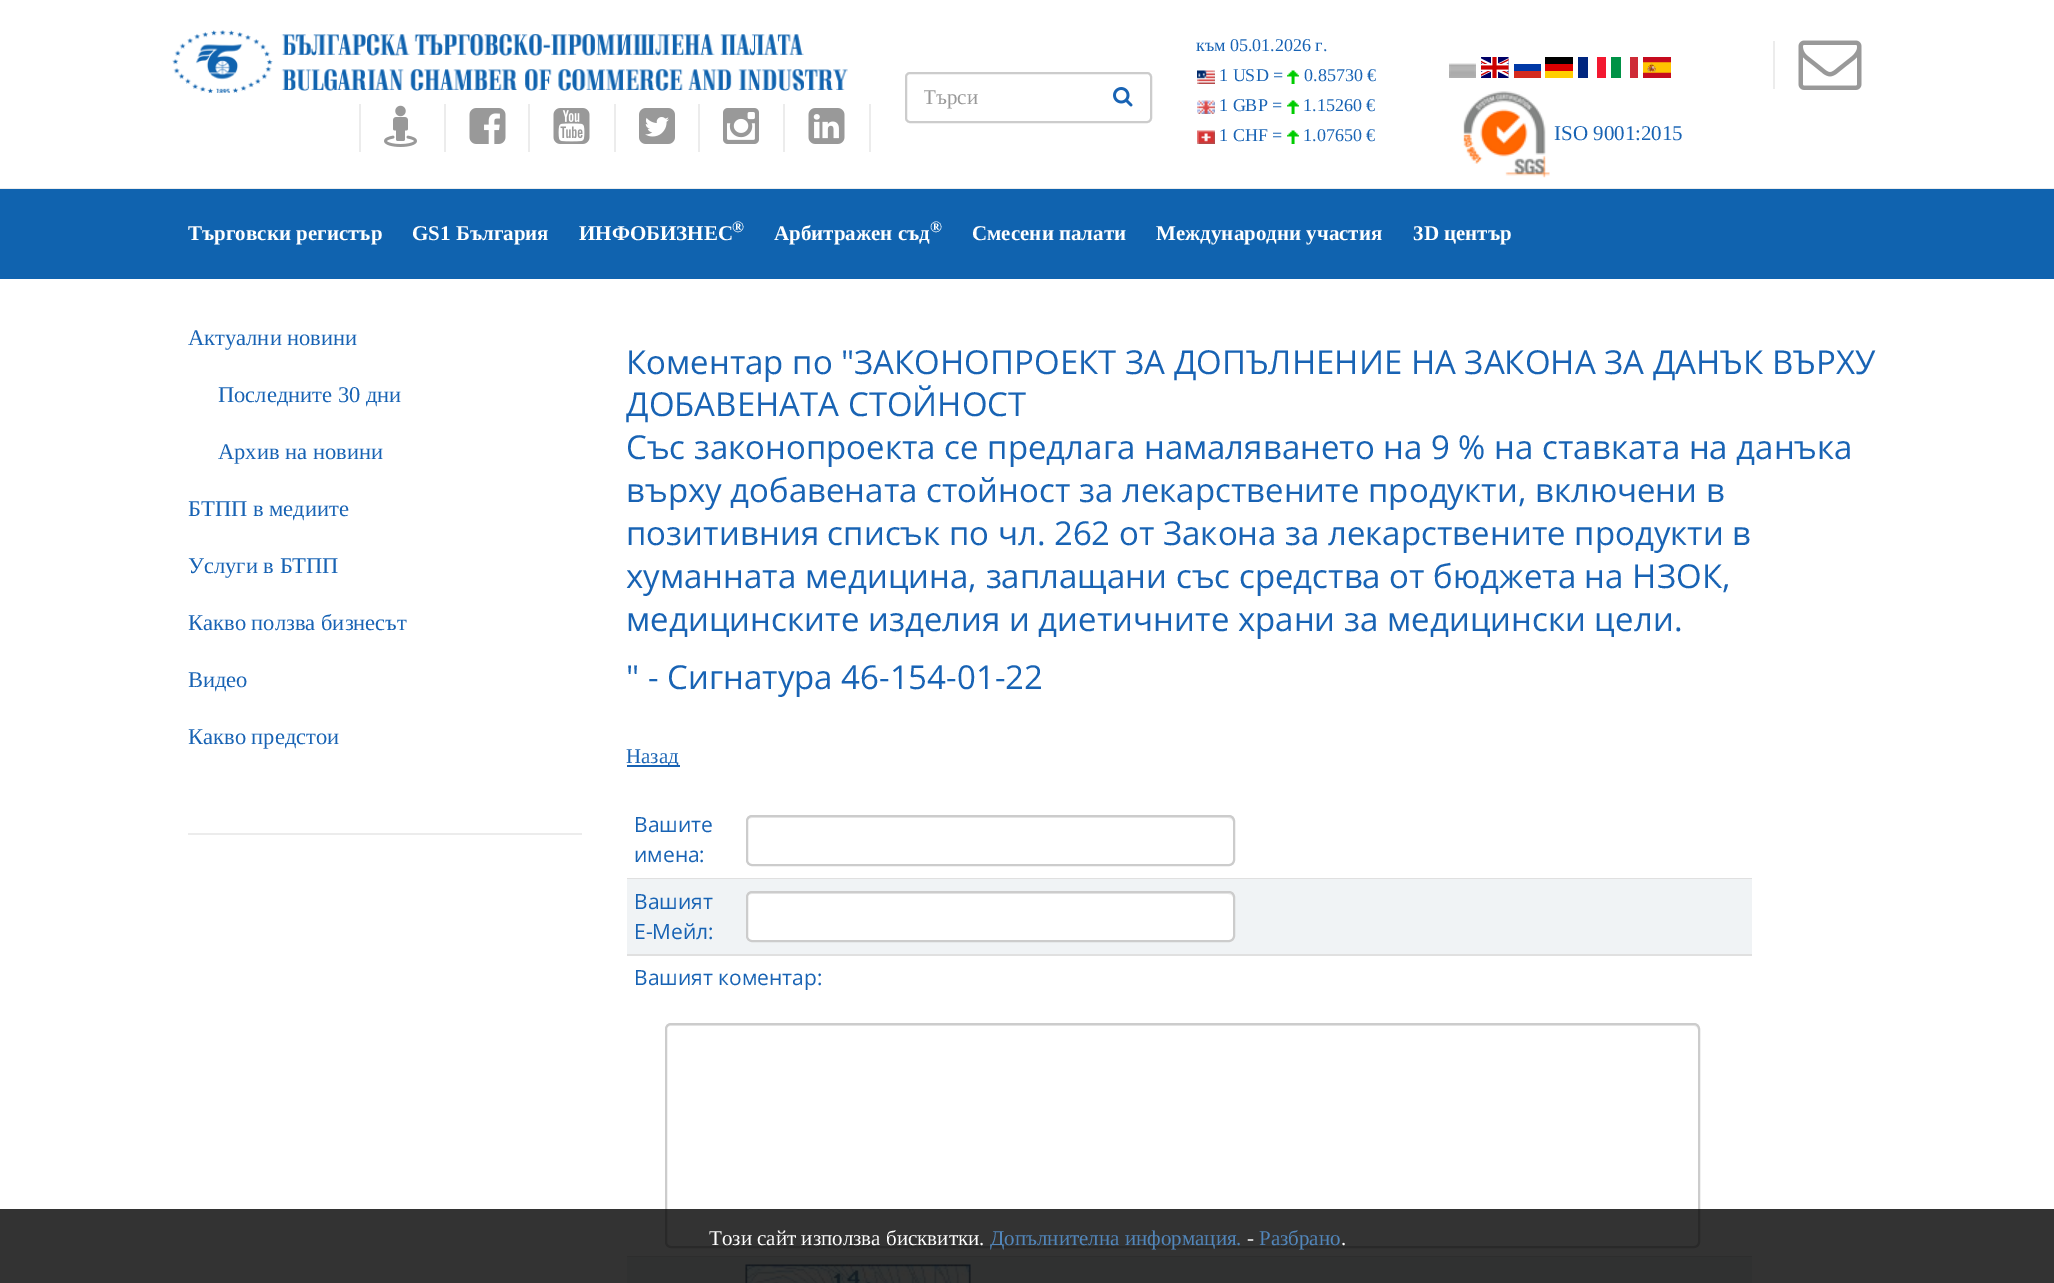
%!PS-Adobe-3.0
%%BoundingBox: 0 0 2054 1283
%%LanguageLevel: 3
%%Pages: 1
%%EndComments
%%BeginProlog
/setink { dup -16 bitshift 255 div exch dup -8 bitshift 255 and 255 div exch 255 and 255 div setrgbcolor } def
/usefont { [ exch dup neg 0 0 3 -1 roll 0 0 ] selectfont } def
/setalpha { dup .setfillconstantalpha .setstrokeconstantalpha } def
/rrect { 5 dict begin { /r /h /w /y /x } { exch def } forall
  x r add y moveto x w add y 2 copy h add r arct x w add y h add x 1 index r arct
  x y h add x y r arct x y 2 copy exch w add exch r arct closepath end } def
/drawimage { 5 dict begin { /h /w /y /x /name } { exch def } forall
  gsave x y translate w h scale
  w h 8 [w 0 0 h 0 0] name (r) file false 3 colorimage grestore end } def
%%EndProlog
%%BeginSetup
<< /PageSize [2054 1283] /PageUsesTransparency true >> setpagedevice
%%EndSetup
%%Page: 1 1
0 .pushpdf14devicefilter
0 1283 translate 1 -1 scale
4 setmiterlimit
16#FFFFFF setink
0 0 2054 1283 rectfill
16#ECECEC setink
0 188 2054 1 rectfill
(img1.raw) 172 30 676 63 drawimage
359 104 2 48 rectfill
(img2.raw) 384 105 33 42 drawimage
444 104 2 48 rectfill
(img3.raw) 469 108 37 36 drawimage
528 104 2 48 rectfill
(img4.raw) 553 108 37 36 drawimage
614 104 2 48 rectfill
(img5.raw) 639 108 36 36 drawimage
698 104 2 48 rectfill
(img6.raw) 723 108 36 36 drawimage
869 104 2 48 rectfill
783 104 2 48 rectfill
(img7.raw) 808 108 37 36 drawimage
/LiberationSerif-Regular 18 usefont
16#1863B4 setink
1196 51 moveto (към 05.01.2026 г.) show
(img8.raw) 1197 70 18 14 drawimage
1219 81 moveto (1 USD =) show
(img9.raw) 1287 70 12 14 drawimage
1304 81 moveto (0.85730 €) show
(img10.raw) 1197 100 18 14 drawimage
1219 111 moveto (1 GBP =) show
(img9.raw) 1287 100 12 14 drawimage
1303 111 moveto (1.15260 €) show
(img11.raw) 1197 130 18 14 drawimage
1219 141 moveto (1 CHF =) show
(img9.raw) 1287 130 12 14 drawimage
1303 141 moveto (1.07650 €) show
(img12.raw) 1449 63 27 15 drawimage
(img13.raw) 1481 57 28 21 drawimage
[
    [1514 64 27 7 16#0039A6]
    [1514 71 27 7 16#D52B1E]
    [1545 71 28 7 16#FFCE00]
    [1545 57 28 7 16#000000]
    [1545 64 28 7 16#DD0000]
    [1578 57 10 21 16#00267F]
    [1597 57 9 21 16#F31830]
    [1611 57 10 21 16#009246]
    [1630 57 8 21 16#CE2B37]
] { aload pop setink rectfill } forall
(img14.raw) 1643 57 28 21 drawimage
(img15.raw) 1463 91 87 87 drawimage
/LiberationSerif-Regular 21 usefont
16#1863B4 setink
1554 140 moveto (ISO 9001:2015) show
16#ECECEC setink
1773 41 2 48 rectfill
(img16.raw) 1798 40 64 50 drawimage
16#CCCCCC setink
2 setlinewidth
906 73 245 49 4 rrect stroke
gsave
924 86 167 24 rectclip
16#999999 setink
923 104 moveto (Търси) show
grestore
(img17.raw) 1113 87 20 20 drawimage
16#1063AF setink
0 189 2054 90 rectfill
/LiberationSerif-Bold 21 usefont
16#FFFFFF setink
[
    [(Търговски регистър) 188 240]
    [(GS1 България) 412 240]
    [(ИНФОБИЗНЕС) 579 240]
] { aload pop moveto show } forall
/LiberationSerif-Bold 16 usefont
732 232 moveto (®) show
/LiberationSerif-Bold 21 usefont
774 240 moveto (Арбитражен съд) show
/LiberationSerif-Bold 16 usefont
930 232 moveto (®) show
/LiberationSerif-Bold 21 usefont
[
    [(Смесени палати) 972 240]
    [(Международни участия) 1156 240]
    [(3D център) 1413 240]
] { aload pop moveto show } forall
16#ECECEC setink
188 833 394 2 rectfill
/LiberationSerif-Regular 22.5 usefont
16#1863B4 setink
[
    [(Актуални новини) 188 345]
    [(Последните 30 дни) 218 402]
    [(Архив на новини) 218 459]
    [(БTПП в медиите) 188 516]
    [(Услуги в БТПП) 188 573]
    [(Какво ползва бизнесът) 188 630]
    [(Видео) 188 687]
    [(Какво предстои) 188 744]
] { aload pop moveto show } forall
/OpenSans-Regular 33 usefont
[
    [(Коментар по "ЗАКОНОПРОЕКТ ЗА ДОПЪЛНЕНИЕ НА ЗАКОНА ЗА ДАНЪК ВЪРХУ) 626 374]
    [(ДОБАВЕНАТА СТОЙНОСТ) 626 416]
    [(Със законопроекта се предлага намаляването на 9 % на ставката на данъка) 626 459]
    [(върху добавената стойност за лекарствените продукти, включени в) 626 502]
    [(позитивния списък по чл. 262 от Закона за лекарствените продукти в) 626 545]
    [(хуманната медицина, заплащани със средства от бюджета на НЗОК,) 626 588]
    [(медицинските изделия и диетичните храни за медицински цели.) 626 631]
    [(" - Сигнатура 46-154-01-22) 626 689]
] { aload pop moveto show } forall
627 765 53 2 rectfill
/LiberationSerif-Regular 21 usefont
626 763 moveto (Назад) show
16#E0E0E0 setink
627 878 1125 1 rectfill
/OpenSans-Regular 21 usefont
16#1863B4 setink
634 832 moveto (Вашите) show
634 862 moveto (имена:) show
16#ECECEC setink
752 818 moveto 1228 818 lineto 1231 818 1233 820 1233 822 curveto 1233 821 lineto 1233 818 1231 816 1228 816 curveto 752 816 lineto 749 816 747 818 747 821 curveto 747 822 lineto 747 820 749 818 752 818 curveto closepath fill
16#CCCCCC setink
747 816 487 49 5 rrect stroke
16#F0F3F5 setink
627 879 1125 75 rectfill
16#E0E0E0 setink
627 954 1125 2 rectfill
16#1863B4 setink
634 909 moveto (Вашият) show
634 939 moveto (Е-Мейл:) show
16#FFFFFF setink
746 891 489 51 6 rrect fill
16#ECECEC setink
752 894 moveto 1228 894 lineto 1231 894 1233 896 1233 898 curveto 1233 895 1231 893 1228 893 curveto 752 893 lineto 749 893 747 895 747 898 curveto 747 896 749 894 752 894 curveto closepath fill
16#CCCCCC setink
747 892 487 49 5 rrect stroke
16#E0E0E0 setink
627 1256 1125 1 rectfill
16#1863B4 setink
634 985 moveto (Вашият коментар:) show
16#ECECEC setink
670 1026 moveto 1694 1026 lineto 1696 1026 1698 1028 1698 1030 curveto 1698 1027 1696 1025 1693 1025 curveto 671 1025 lineto 668 1025 666 1027 666 1030 curveto 666 1028 668 1026 670 1026 curveto closepath fill
16#CCCCCC setink
666 1024 1033 223 5 rrect stroke
16#F0F3F5 setink
627 1257 1125 26 rectfill
(img18.raw) 745 1264 226 19 drawimage
0.8 setalpha
16#000000 setink
0 1209 2054 74 rectfill
/LiberationSerif-Regular 21 usefont
1 setalpha
16#FFFFFF setink
709 1245 moveto (Този сайт използва бисквитки.) show
16#5186BB setink
990 1245 moveto (Допълнителна информация.) show
16#FFFFFF setink
1247 1245 moveto (-) show
16#5186BB setink
1259 1245 moveto (Разбрано) show
16#FFFFFF setink
1341 1245 moveto (.) show
.poppdf14devicefilter showpage
%%EOF
